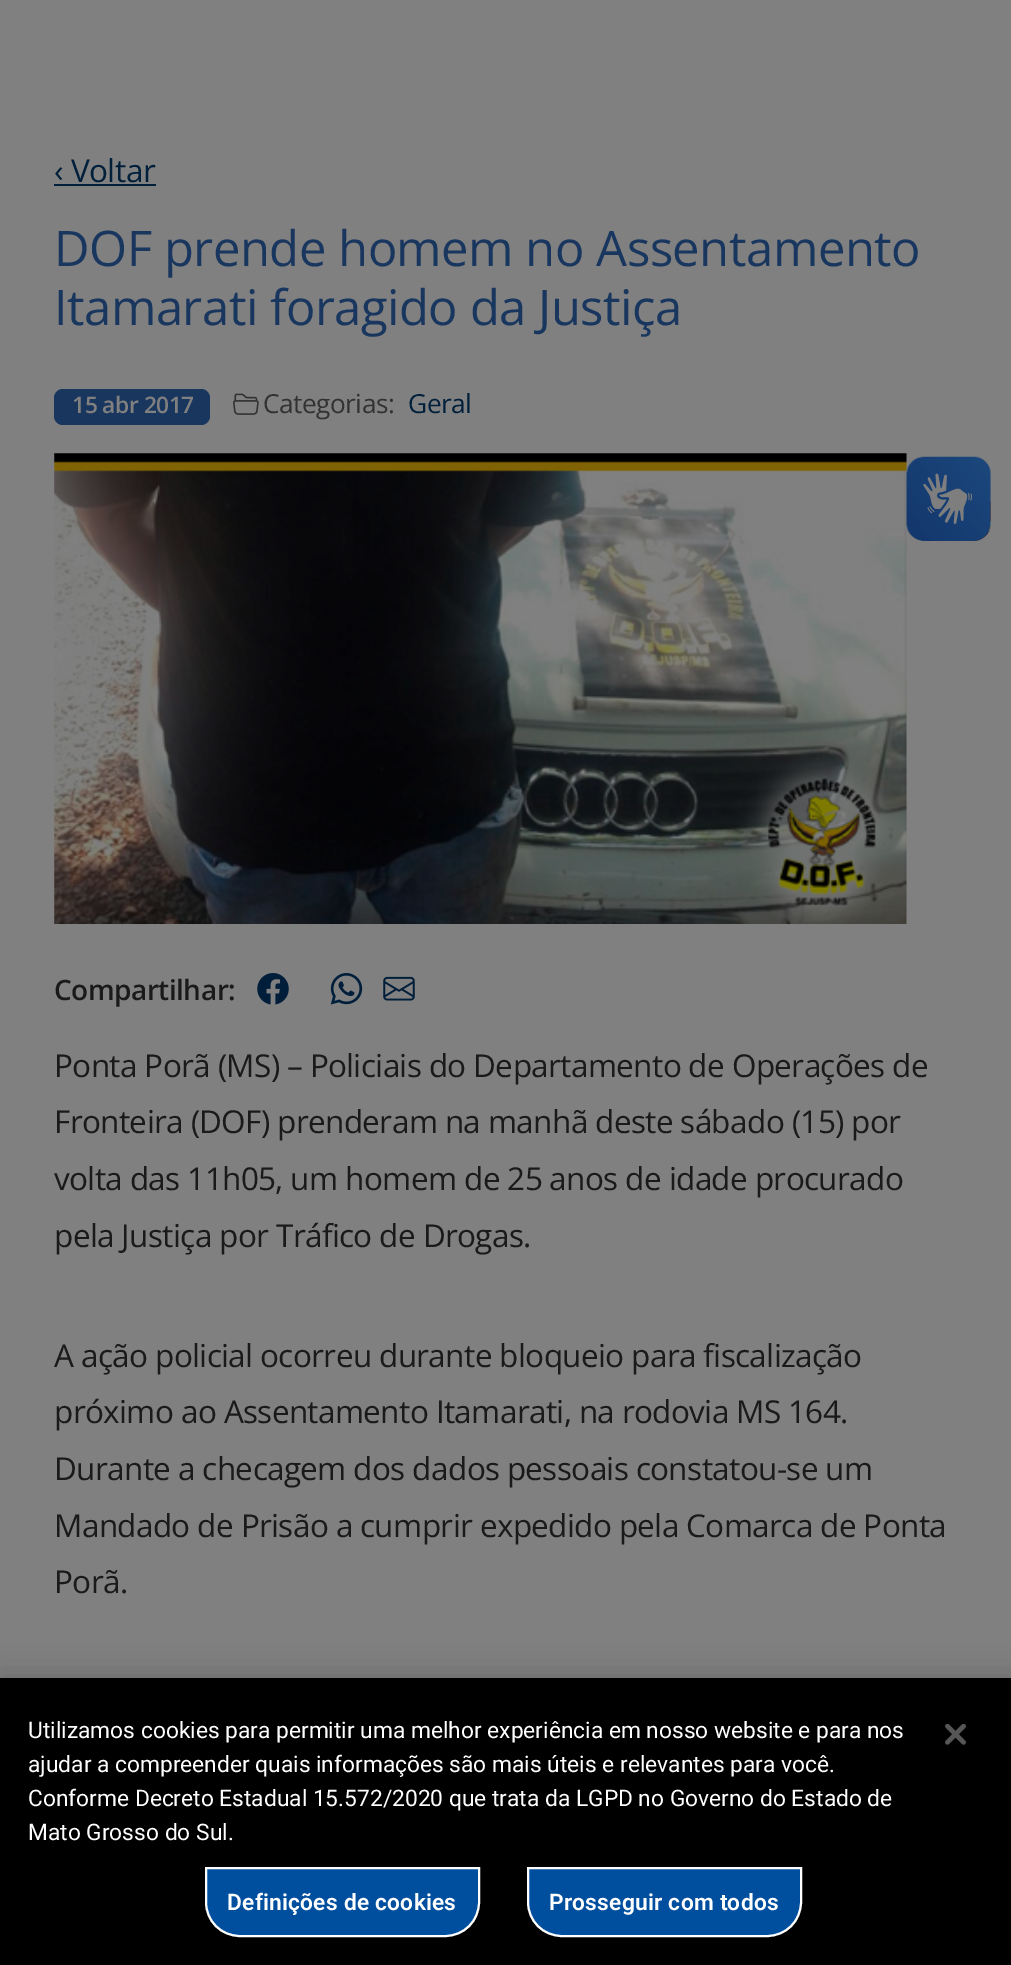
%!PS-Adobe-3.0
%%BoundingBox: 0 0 1011 1965
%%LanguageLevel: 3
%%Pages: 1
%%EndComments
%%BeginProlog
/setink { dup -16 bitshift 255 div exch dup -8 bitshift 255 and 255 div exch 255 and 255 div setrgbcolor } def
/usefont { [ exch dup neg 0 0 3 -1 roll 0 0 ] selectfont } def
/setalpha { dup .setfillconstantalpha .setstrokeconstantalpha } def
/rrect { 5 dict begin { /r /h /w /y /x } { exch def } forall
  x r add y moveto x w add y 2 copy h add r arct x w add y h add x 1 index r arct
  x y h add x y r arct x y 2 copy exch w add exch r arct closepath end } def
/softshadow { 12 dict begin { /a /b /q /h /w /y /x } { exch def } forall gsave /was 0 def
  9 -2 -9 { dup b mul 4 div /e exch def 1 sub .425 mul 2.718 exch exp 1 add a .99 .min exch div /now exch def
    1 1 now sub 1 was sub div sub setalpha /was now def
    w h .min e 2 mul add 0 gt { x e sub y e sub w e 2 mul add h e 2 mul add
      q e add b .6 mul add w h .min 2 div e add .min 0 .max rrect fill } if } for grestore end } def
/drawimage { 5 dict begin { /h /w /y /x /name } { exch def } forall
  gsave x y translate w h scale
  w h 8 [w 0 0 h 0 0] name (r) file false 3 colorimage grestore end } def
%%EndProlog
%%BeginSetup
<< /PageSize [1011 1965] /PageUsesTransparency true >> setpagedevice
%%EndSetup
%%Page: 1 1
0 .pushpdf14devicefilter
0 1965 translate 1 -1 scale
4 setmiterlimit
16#808080 setink
0 0 1011 1965 rectfill
/OpenSans-Regular 31.5 usefont
16#001F3B setink
54 182 moveto -0.5 0 (‹ Voltar) ashow
54 184 102 2 rectfill
/OpenSans-Regular 49 usefont
16#19365F setink
54 266 moveto -0.5 0 (DOF prende homem no Assentamento) ashow
54 325 moveto -0.5 0 (Itamarati foragido da Justiça) ashow
54 389 156 36 9 rrect fill
/OpenSans-SemiBold 22.75 usefont
16#808080 setink
72 413 moveto -0.5 0 (15 abr 2017) ashow
(img1.raw) 233 393 26 22 drawimage
/OpenSans-Regular 26.25 usefont
16#323232 setink
263 413 moveto -0.5 0 (Categorias:) ashow
16#001F3B setink
408 413 moveto -0.5 0 (Geral) ashow
(img2.raw) 54 453 853 471 drawimage
/OpenSans-SemiBold 28 usefont
16#1A1A1A setink
54 1000 moveto -0.5 0 (Compartilhar:) ashow
(img3.raw) 257 973 32 32 drawimage
(img4.raw) 330 973 33 32 drawimage
(img5.raw) 383 976 32 25 drawimage
/OpenSans-Regular 31.5 usefont
54 1077 moveto -0.63 0 (Ponta Porã \(MS\) – Policiais do Departamento de Operações de) ashow
54 1133 moveto -0.63 0 (Fronteira \(DOF\) prenderam na manhã deste sábado \(15\) por) ashow
54 1190 moveto -0.63 0 (volta das 11h05, um homem de 25 anos de idade procurado) ashow
54 1247 moveto -0.63 0 (pela Justiça por Tráfico de Drogas.) ashow
54 1367 moveto -0.63 0 (A ação policial ocorreu durante bloqueio para fiscalização) ashow
54 1423 moveto -0.63 0 (próximo ao Assentamento Itamarati, na rodovia MS 164.) ashow
54 1480 moveto -0.63 0 (Durante a checagem dos dados pessoais constatou-se um) ashow
54 1537 moveto -0.63 0 (Mandado de Prisão a cumprir expedido pela Comarca de Ponta) ashow
54 1593 moveto -0.63 0 (Porã.) ashow
(img6.raw) 906 456 85 85 drawimage
(img7.raw) 907 457 83 84 drawimage
16#000000 setink
0 1678 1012 287 0 16 0.2 softshadow
0 1678 1011 287 rectfill
/Roboto-Regular 22.75 usefont
16#FFFFFF setink
[
    [(Utilizamos cookies para permitir uma melhor experiência em nosso website e para nos) 28 1738]
    [(ajudar a compreender quais informações são mais úteis e relevantes para você.) 28 1772]
    [(Conforme Decreto Estadual 15.572/2020 que trata da LGPD no Governo do Estado de) 28 1806]
    [(Mato Grosso do Sul.) 28 1840]
] { aload pop moveto show } forall
16#004F9F setink
206 1868 moveto 479 1868 lineto 479 1902 lineto 479 1921 464 1936 445 1936 curveto 240 1936 lineto 221 1936 206 1921 206 1902 curveto closepath gsave fill grestore
16#FFFFFF setink
2 setlinewidth
stroke
/Roboto-SemiBold 22.75 usefont
227 1910 moveto 0.25 0 (Definições de cookies) ashow
16#004F9F setink
528 1868 moveto 801 1868 lineto 801 1902 lineto 801 1921 786 1936 767 1936 curveto 562 1936 lineto 543 1936 528 1921 528 1902 curveto closepath gsave fill grestore
16#FFFFFF setink
stroke
549 1910 moveto 0.25 0 (Prosseguir com todos) ashow
(img8.raw) 945 1724 21 21 drawimage
.poppdf14devicefilter showpage
%%EOF
